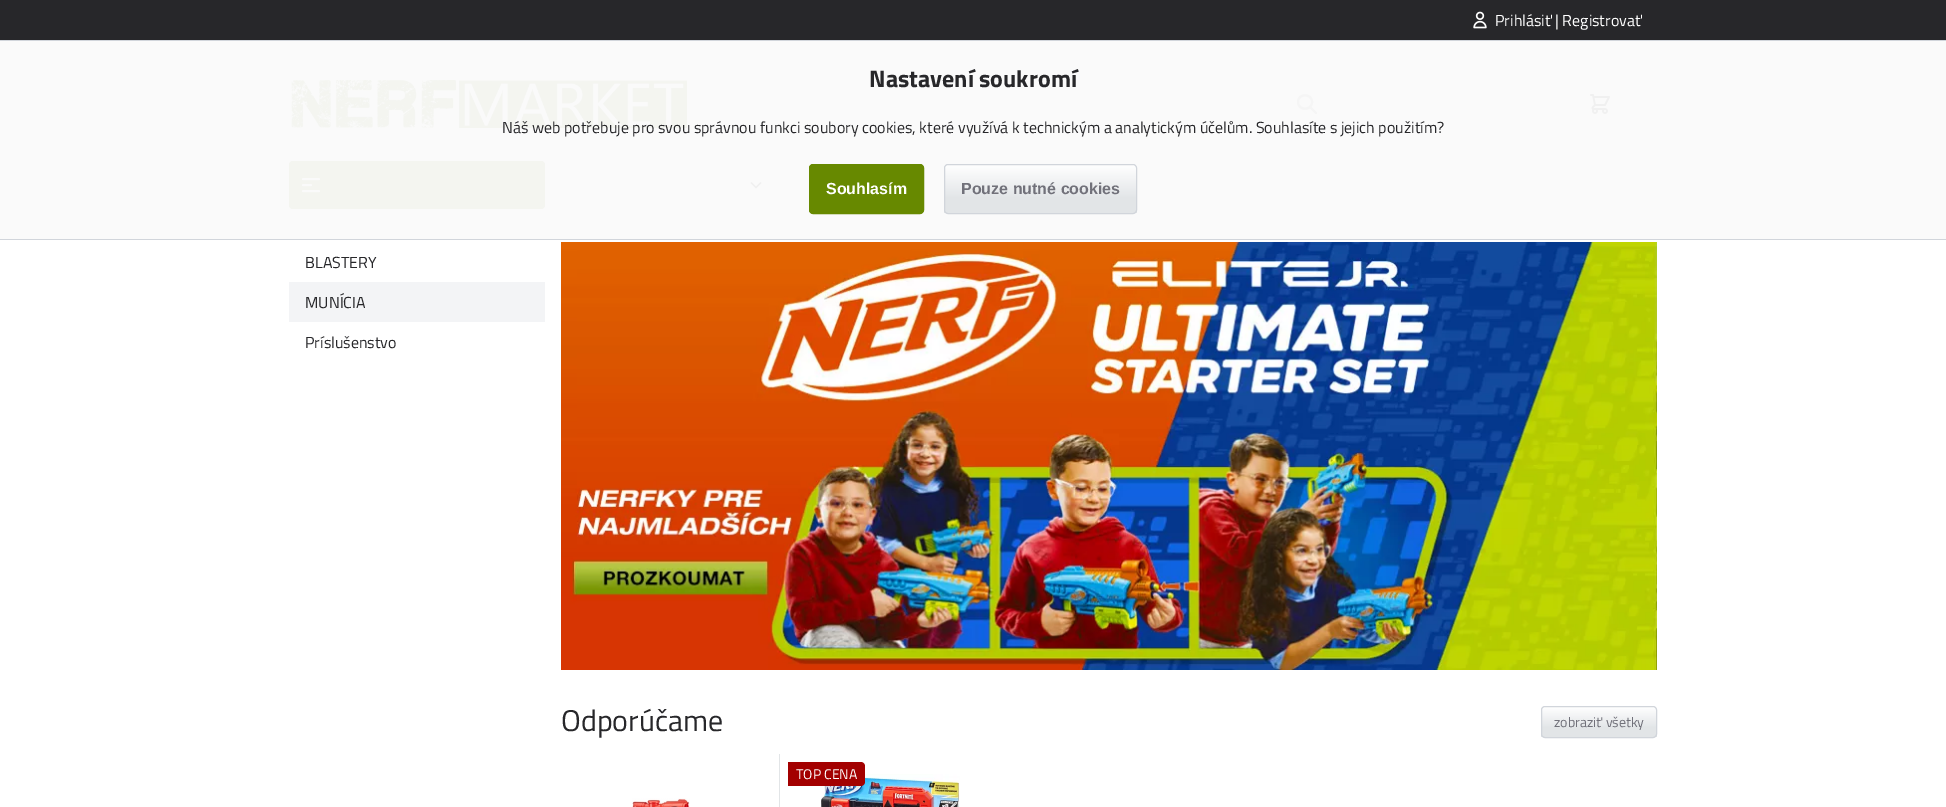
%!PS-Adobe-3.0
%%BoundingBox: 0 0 1946 807
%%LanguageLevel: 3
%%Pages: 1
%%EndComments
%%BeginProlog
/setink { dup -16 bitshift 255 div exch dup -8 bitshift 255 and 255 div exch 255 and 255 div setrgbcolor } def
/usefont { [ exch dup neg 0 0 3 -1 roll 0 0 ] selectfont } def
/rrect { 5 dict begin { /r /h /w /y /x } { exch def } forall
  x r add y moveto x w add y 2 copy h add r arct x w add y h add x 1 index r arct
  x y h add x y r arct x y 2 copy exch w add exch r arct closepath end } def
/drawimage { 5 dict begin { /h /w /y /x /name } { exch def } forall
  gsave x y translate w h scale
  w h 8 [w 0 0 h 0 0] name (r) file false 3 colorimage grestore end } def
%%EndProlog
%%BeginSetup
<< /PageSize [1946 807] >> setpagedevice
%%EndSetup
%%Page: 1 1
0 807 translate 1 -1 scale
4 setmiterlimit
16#FAFAFA setink
0 0 1946 807 rectfill
16#27272A setink
0 0 1946 40 rectfill
(img1.raw) 1473 11 14 18 drawimage
/TitilliumWeb-Regular 16 usefont
16#FFFFFF setink
1495 26 moveto (Prihlásiť | Registrovať) show
16#D1D5DB setink
0 40 1946 1 rectfill
0 239 1946 1 rectfill
/TitilliumWeb-Bold 24 usefont
16#27272A setink
869 87 moveto (Nastavení soukromí) show
(img2.raw) 291 80 396 48 drawimage
/TitilliumWeb-Regular 16 usefont
502 133 moveto (Náš web potřebuje pro svou správnou funkci soubory cookies, které využívá k technickým a analytickým účelům. Souhlasíte s jejich použitím?) show
16#678900 setink
809.5 164.5 114 49 3.5 rrect gsave fill grestore
stroke
/LiberationSans-Bold 16 usefont
16#FFFFFF setink
826 194 moveto (Souhlasím) show
gsave
944 164 193 50 4 rrect clip newpath
gsave 944 165 moveto 1137 165 lineto 1137 213 lineto 944 213 lineto closepath clip newpath
<< /ShadingType 2 /ColorSpace /DeviceRGB /Coords [1041 165 1041 213] /Extend [true true] /Function << /FunctionType 3 /Domain [0 1] /Functions [<< /FunctionType 2 /Domain [0 1] /C0 [1 1 1] /C1 [0.886 0.898 0.906] /N 1 >> << /FunctionType 2 /Domain [0 1] /C0 [0.886 0.898 0.906] /C1 [0.886 0.898 0.906] /N 1 >>] /Bounds [0.7] /Encode [0 1 0 1] >> >> shfill grestore
grestore
16#D1D5DB setink
944.5 164.5 192 49 3.5 rrect stroke
16#71717A setink
961 194 moveto (Pouze nutné cookies) show
16#F5F5F5 setink
2 setlinewidth
1 setlinecap
1 setlinejoin
1316 113 moveto 1310 107 lineto 1312 102 moveto 1312 111 1298 111 1298 102 curveto 1298 93 1312 93 1312 102 curveto closepath stroke
(img3.raw) 1590 94 20 20 drawimage
16#F4F5F0 setink
289 161 256 48 4 rrect fill
16#FAFAFA setink
303 179 moveto 319 179 lineto 303 185 moveto 311 185 lineto 303 191 moveto 319 191 lineto stroke
16#F0F0F0 setink
1.3 setlinewidth
760.5 183 moveto 756 187.5 lineto 751.5 183 lineto stroke
16#FFFFFF setink
0 240 1946 567 rectfill
/TitilliumWeb-Regular 16 usefont
16#27272A setink
305 268 moveto (BLASTERY) show
16#F3F4F6 setink
289 282 256 40 rectfill
16#27272A setink
305 308 moveto (MUNÍCIA) show
305 348 moveto (Príslušenstvo) show
(img4.raw) 561 242 1096 428 drawimage
/TitilliumWeb-Regular 30 usefont
561 731 moveto (Odporúčame) show
gsave
1541 706 116 32 4 rrect clip newpath
gsave 1541 707 moveto 1657 707 lineto 1657 737 lineto 1541 737 lineto closepath clip newpath
<< /ShadingType 2 /ColorSpace /DeviceRGB /Coords [1599 707 1599 737] /Extend [true true] /Function << /FunctionType 3 /Domain [0 1] /Functions [<< /FunctionType 2 /Domain [0 1] /C0 [1 1 1] /C1 [0.886 0.898 0.906] /N 1 >> << /FunctionType 2 /Domain [0 1] /C0 [0.886 0.898 0.906] /C1 [0.886 0.898 0.906] /N 1 >>] /Bounds [0.7] /Encode [0 1 0 1] >> >> shfill grestore
grestore
16#D1D5DB setink
1 setlinewidth
0 setlinecap
0 setlinejoin
1541.5 706.5 115 31 3.5 rrect stroke
/TitilliumWeb-Regular 14 usefont
16#71717A setink
1554 727 moveto (zobraziť všetky) show
16#E2E5E7 setink
779 754 1 53 rectfill
(img5.raw) 632 798 58 9 drawimage
(img6.raw) 821 774 139 33 drawimage
16#A30000 setink
788 762 moveto 861 762 lineto 863 762 865 764 865 766 curveto 865 782 lineto 865 784 863 786 861 786 curveto 788 786 lineto closepath fill
16#FFFFFF setink
796 779 moveto (TOP CENA) show
showpage
%%EOF
